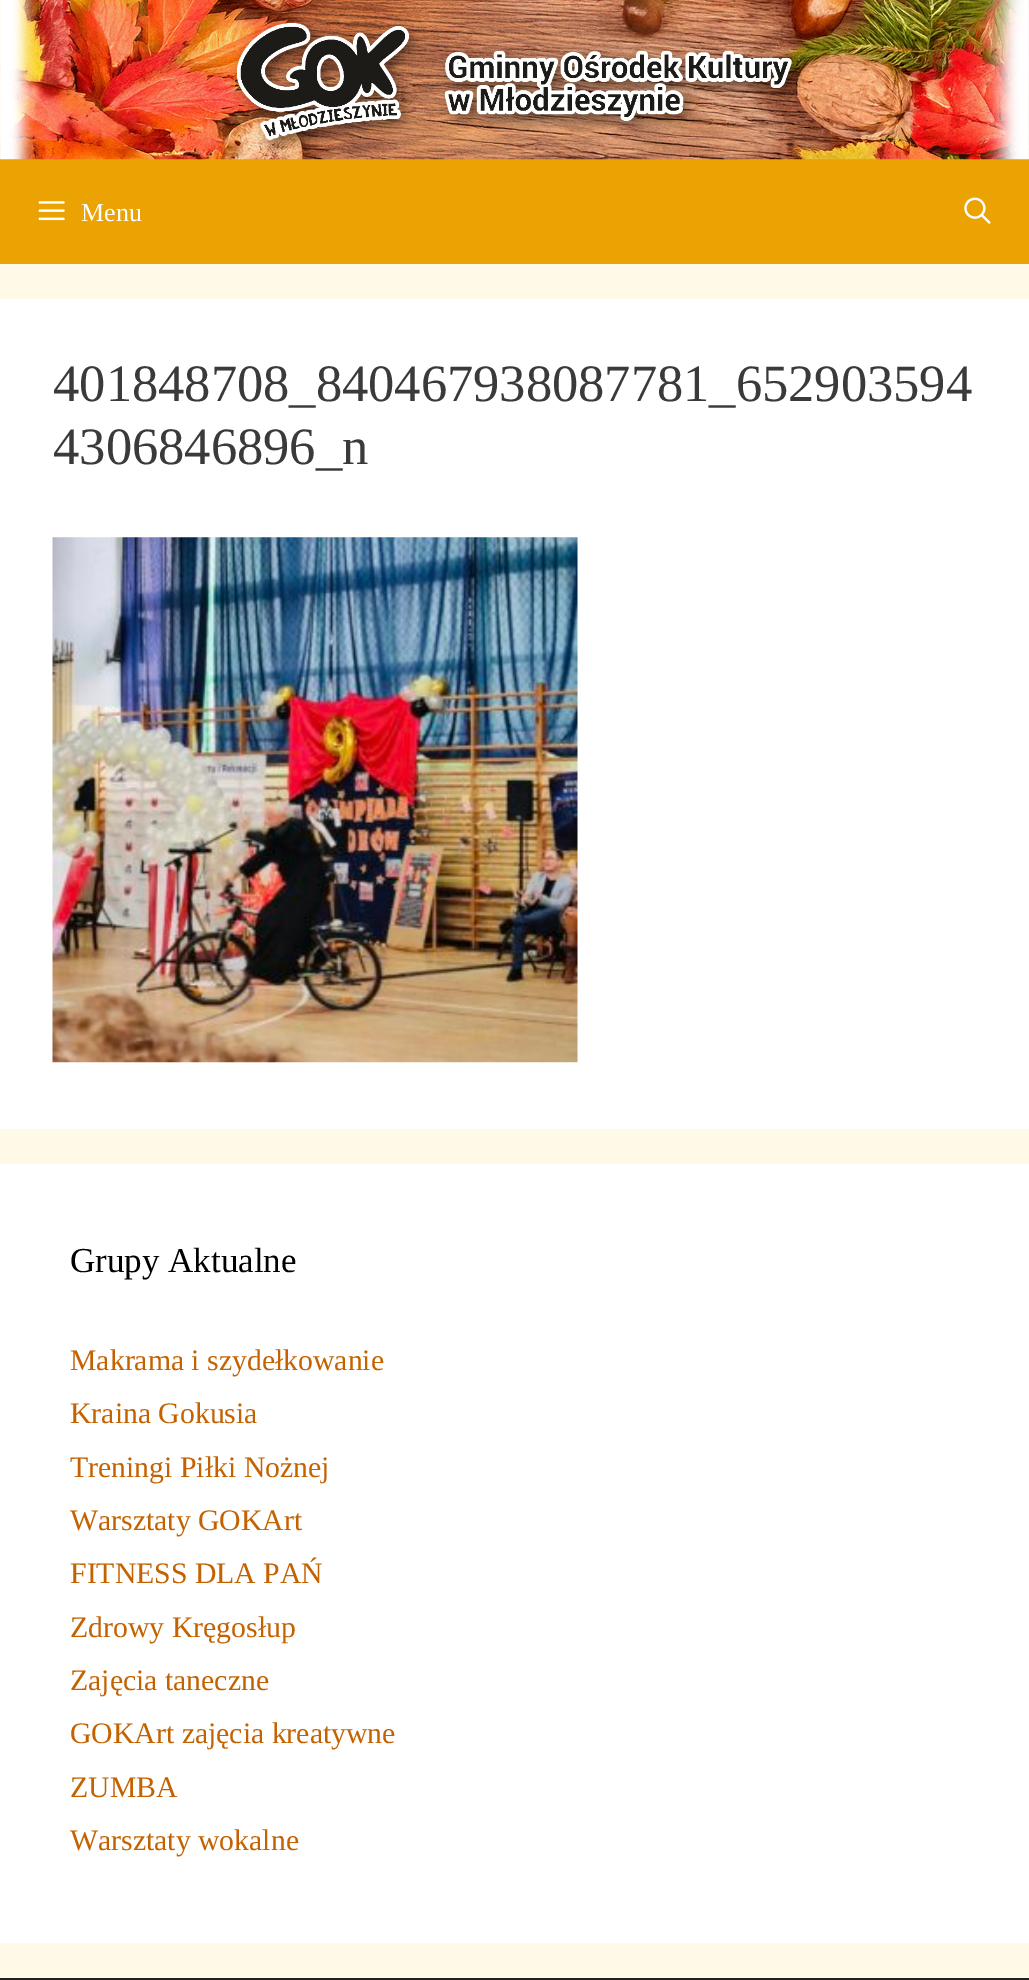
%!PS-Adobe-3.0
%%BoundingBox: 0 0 1029 1980
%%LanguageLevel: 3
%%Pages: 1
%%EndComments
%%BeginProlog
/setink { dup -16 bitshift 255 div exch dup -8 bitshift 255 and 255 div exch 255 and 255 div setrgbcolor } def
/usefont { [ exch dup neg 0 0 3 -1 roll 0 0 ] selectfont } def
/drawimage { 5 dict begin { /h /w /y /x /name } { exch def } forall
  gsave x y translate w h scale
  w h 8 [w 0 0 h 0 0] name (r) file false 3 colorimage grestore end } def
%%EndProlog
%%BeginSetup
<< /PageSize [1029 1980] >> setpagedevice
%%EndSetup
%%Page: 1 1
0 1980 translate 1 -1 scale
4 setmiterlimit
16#FFF9E7 setink
0 0 1029 1980 rectfill
16#EBA203 setink
0 159 1029 105 rectfill
(img1.raw) 0 0 1029 160 drawimage
(img2.raw) 38 201 27 20 drawimage
/LiberationSerif-Regular 26 usefont
16#FFFFFF setink
81 221 moveto (Menu) show
(img3.raw) 964 197 27 27 drawimage
0 299 1029 830 rectfill
/LiberationSerif-Regular 52.5 usefont
16#3A3A3A setink
53 401 moveto (401848708_840467938087781_652903594) show
53 464 moveto (4306846896_n) show
(img4.raw) 52 537 526 526 drawimage
16#FFFFFF setink
0 1164 1029 779 rectfill
/LiberationSerif-Regular 35 usefont
16#000000 setink
70 1272 moveto (Grupy Aktualne) show
/LiberationSerif-Regular 29.75 usefont
16#C46200 setink
[
    [(Makrama i szydełkowanie) 70 1370]
    [(Kraina Gokusia) 70 1423]
    [(Treningi Piłki Nożnej) 70 1477]
    [(Warsztaty GOKArt) 70 1530]
    [(FITNESS DLA PAŃ) 70 1583]
    [(Zdrowy Kręgosłup) 70 1637]
    [(Zajęcia taneczne) 70 1690]
    [(GOKArt zajęcia kreatywne) 70 1743]
    [(ZUMBA) 70 1797]
    [(Warsztaty wokalne) 70 1850]
] { aload pop moveto show } forall
16#222222 setink
0 1978 1029 2 rectfill
showpage
%%EOF
